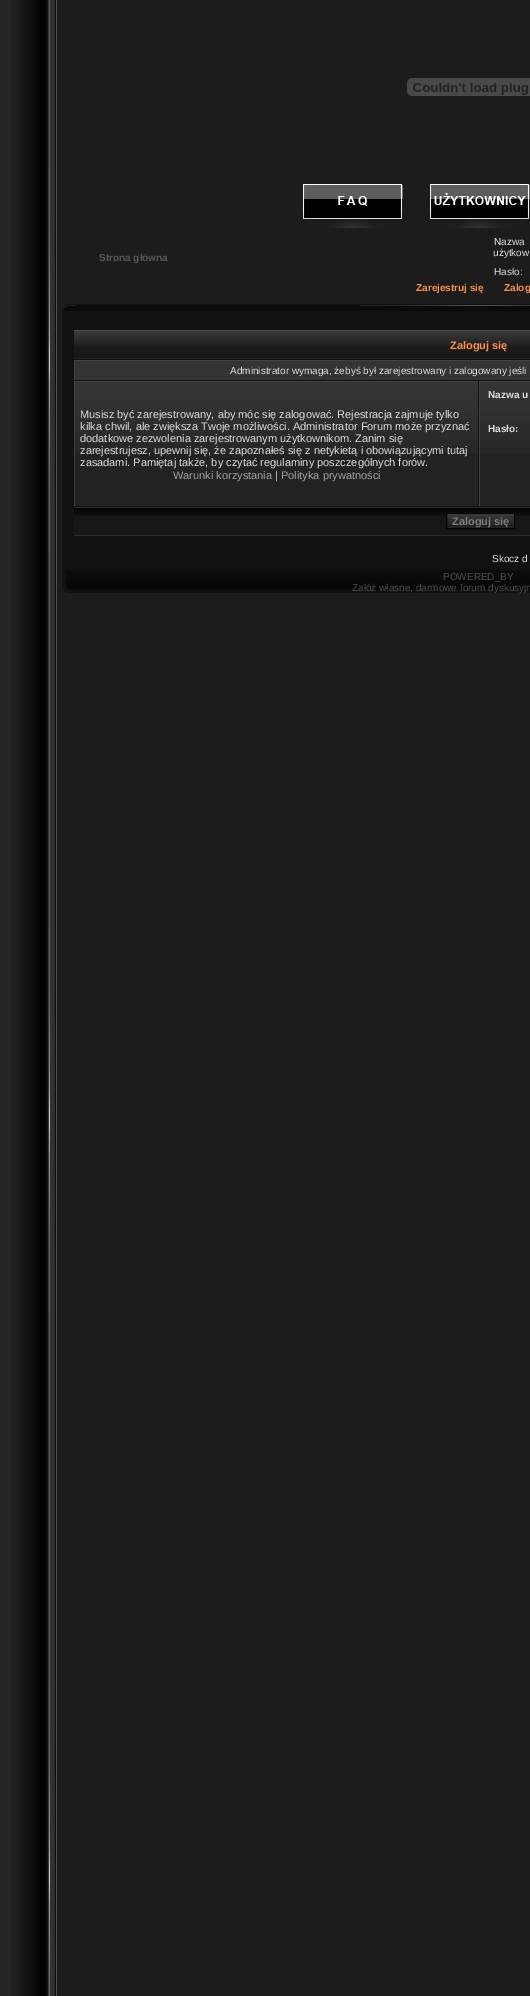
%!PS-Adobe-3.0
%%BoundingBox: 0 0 530 1996
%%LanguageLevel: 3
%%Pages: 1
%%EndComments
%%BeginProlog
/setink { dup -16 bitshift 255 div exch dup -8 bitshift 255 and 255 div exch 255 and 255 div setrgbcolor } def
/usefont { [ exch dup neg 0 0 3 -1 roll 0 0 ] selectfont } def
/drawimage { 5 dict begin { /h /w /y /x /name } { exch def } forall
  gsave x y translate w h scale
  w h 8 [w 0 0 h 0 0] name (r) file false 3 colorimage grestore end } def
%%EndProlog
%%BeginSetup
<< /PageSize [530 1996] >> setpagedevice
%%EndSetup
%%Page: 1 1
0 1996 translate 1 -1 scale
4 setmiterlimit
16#1C1C1C setink
0 0 530 1996 rectfill
16#252525 setink
0 0 11 1996 rectfill
(img1.raw) 11 0 46 1996 drawimage
(img2.raw) 407 78 123 18 drawimage
(img3.raw) 303 184 100 44 drawimage
(img4.raw) 430 184 100 44 drawimage
/LiberationSans-Bold 10 usefont
16#585858 setink
99 261 moveto (Strona główna) show
/LiberationSans-Regular 10 usefont
16#DDDDDD setink
[
    [(Nazwa) 494 245]
    [(użytkow) 493 256]
    [(Hasło:) 494 275]
] { aload pop moveto show } forall
/LiberationSans-Bold 10 usefont
16#FC9049 setink
416 291 moveto (Zarejestruj się) show
504 291 moveto (Zalog) show
16#111111 setink
63 304 467 289 rectfill
16#0A0A0A setink
63 305 467 6 rectfill
(img5.raw) 360 305 170 1 drawimage
(img6.raw) 63 304 13 6 drawimage
(img7.raw) 69 570 461 20 drawimage
(img8.raw) 63 570 6 23 drawimage
(img9.raw) 74 330 456 29 drawimage
/LiberationSans-Bold 11 usefont
16#FC9049 setink
450 349 moveto (Zaloguj się) show
[
    [75 361 455 19 16#343434]
    [74 360 456 1 16#444444]
    [74 360 1 20 16#404040]
] { aload pop setink rectfill } forall
/LiberationSans-Regular 10 usefont
16#DDDDDD setink
230 374 moveto (Administrator wymaga, żebyś był zarejestrowany i zalogowany jeśli) show
16#222222 setink
75 453 403 53 rectfill
(img10.raw) 75 382 403 71 drawimage
16#444444 setink
74 381 404 1 rectfill
16#404040 setink
74 381 1 125 rectfill
/LiberationSans-Regular 11 usefont
16#DDDDDD setink
[
    [(Musisz być zarejestrowany, aby móc się zalogować. Rejestracja zajmuje tylko) 80 418]
    [(kilka chwil, ale zwiększa Twoje możliwości. Administrator Forum może przyznać) 80 430]
    [(dodatkowe zezwolenia zarejestrowanym użytkownikom. Zanim się) 80 442]
    [(zarejestrujesz, upewnij się, że zapoznałeś się z netykietą i obowiązującymi tutaj) 80 454]
    [(zasadami. Pamiętaj także, by czytać regulaminy poszczególnych forów.) 80 466]
] { aload pop moveto show } forall
16#A1A1A1 setink
173 479 moveto (Warunki korzystania) show
16#DDDDDD setink
275 479 moveto (|) show
16#A1A1A1 setink
281 479 moveto (Polityka prywatności) show
16#222222 setink
480 453 50 53 rectfill
(img11.raw) 480 382 50 71 drawimage
16#444444 setink
479 381 51 1 rectfill
16#404040 setink
479 381 1 125 rectfill
/LiberationSans-Bold 10 usefont
16#DDDDDD setink
488 398 moveto (Nazwa u) show
488 432 moveto (Hasło:) show
16#171717 setink
74 516 456 19 rectfill
(img12.raw) 74 507 456 9 drawimage
16#2D2D2D setink
74 535 456 1 rectfill
(img13.raw) 447 514 67 14 drawimage
16#040404 setink
446.5 513.5 68 15 rectstroke
/LiberationSans-Bold 11 usefont
16#7C7C7C setink
452 525 moveto (Zaloguj się) show
/LiberationSans-Regular 10 usefont
16#DDDDDD setink
492 562 moveto (Skocz d) show
16#4D4D4D setink
443 580 moveto (POWERED_BY) show
352 591 moveto (Załóż własne, darmowe forum dyskusyjn) show
showpage
%%EOF
